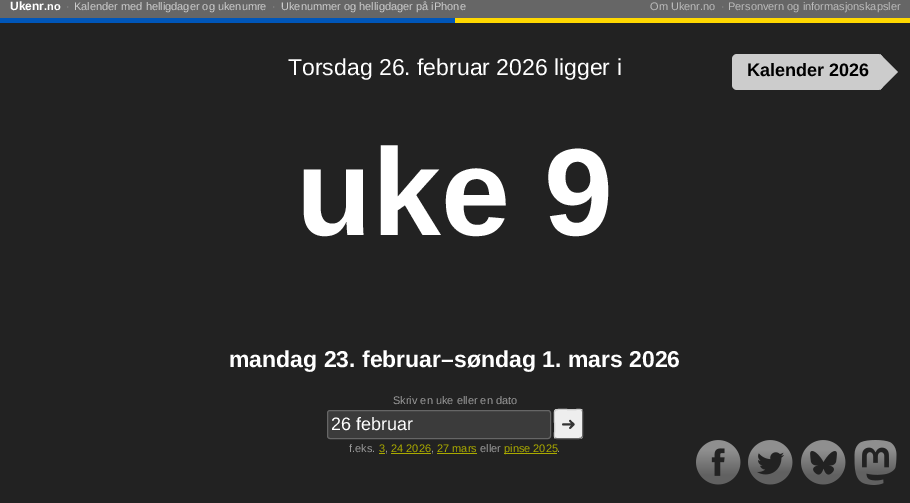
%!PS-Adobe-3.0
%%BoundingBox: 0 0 910 503
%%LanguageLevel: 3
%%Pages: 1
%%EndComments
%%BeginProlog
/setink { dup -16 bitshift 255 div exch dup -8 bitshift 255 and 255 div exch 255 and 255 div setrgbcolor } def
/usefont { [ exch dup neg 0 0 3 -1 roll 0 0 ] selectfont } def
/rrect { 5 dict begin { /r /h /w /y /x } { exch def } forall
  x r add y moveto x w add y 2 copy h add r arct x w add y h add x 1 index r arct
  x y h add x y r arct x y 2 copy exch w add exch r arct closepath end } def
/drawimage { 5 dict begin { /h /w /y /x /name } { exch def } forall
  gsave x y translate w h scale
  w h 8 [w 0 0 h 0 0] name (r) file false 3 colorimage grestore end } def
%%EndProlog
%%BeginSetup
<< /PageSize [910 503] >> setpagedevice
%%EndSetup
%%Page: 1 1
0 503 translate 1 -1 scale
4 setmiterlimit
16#222222 setink
0 0 910 503 rectfill
16#666666 setink
0 0 910 18 rectfill
/LiberationSans-Bold 12 usefont
16#FFFFFF setink
10 10 moveto (Ukenr) show
/LiberationSans-Bold 11 usefont
44 10 moveto (.no) show
/LiberationSans-Regular 11 usefont
16#999999 setink
66 10 moveto (·) show
16#CCCCCC setink
74 10 moveto (Kalender med helligdager og ukenumre) show
16#999999 setink
272 10 moveto (·) show
16#CCCCCC setink
281 10 moveto (Ukenummer og helligdager på iPhone) show
16#BBBBBB setink
650 10 moveto (Om Ukenr.no) show
16#999999 setink
721 10 moveto (·) show
16#BBBBBB setink
728 10 moveto (Personvern og informasjonskapsler) show
16#0056B9 setink
0 18 455 5 rectfill
16#FFD800 setink
455 18 455 5 rectfill
/LiberationSans-Regular 23 usefont
16#FFFFFF setink
288 75 moveto (Torsdag 26. februar 2026 ligger i) show
/LiberationSans-Bold 124 usefont
296 235 moveto (uke 9) show
/LiberationSans-Bold 23 usefont
229 367 moveto (mandag 23. februar–søndag 1. mars 2026) show
16#CCCCCC setink
732 54 151 36 5 rrect fill
/LiberationSans-Bold 18 usefont
16#000000 setink
747 76 moveto (Kalender 2026) show
16#CCCCCC setink
880 90 moveto 880 54 lineto 898 72 lineto closepath fill
/LiberationSans-Regular 11 usefont
16#999999 setink
393 404 moveto (Skriv en uke eller en dato) show
16#3B3B3B setink
327.5 410.5 223 28 2.5 rrect gsave fill grestore
16#666666 setink
stroke
/LiberationSans-Regular 18 usefont
16#FFFFFF setink
331 430 moveto (26 februar) show
16#EEEEEE setink
554 409 29 30 3 rrect fill
16#666666 setink
582 410 moveto 583 411.5 582.5 414.5 582.5 416 curveto 582.5 424 lineto 582.5 441 585.5 438.5 568.5 438.5 curveto 561 438.5 lineto 559.5 438.5 556.5 439 555 438 curveto stroke
16#CCCCCC setink
555 438 moveto 554 436.5 554.5 433.5 554.5 432 curveto 554.5 424 lineto 554.5 407 551.5 409.5 568.5 409.5 curveto 576 409.5 lineto 577.5 409.5 580.5 409 582 410 curveto stroke
/DejaVuSans-Regular 18 usefont
16#333333 setink
561 430 moveto (➜) show
/LiberationSans-Regular 11 usefont
16#999999 setink
349 452 moveto (f.eks.) show
16#AAAA00 setink
379 452 moveto (3) show
379 453 6 1 rectfill
16#999999 setink
385 452 moveto (,) show
16#AAAA00 setink
391 452 moveto (24 2026) show
391 453 40 1 rectfill
16#999999 setink
431 452 moveto (,) show
16#AAAA00 setink
437 452 moveto (27 mars) show
437 453 40 1 rectfill
16#999999 setink
480 452 moveto (eller) show
16#AAAA00 setink
504 453 53 1 rectfill
504 452 moveto (pinse 2025) show
16#999999 setink
557 452 moveto (.) show
(img1.raw) 696 440 45 45 drawimage
(img2.raw) 748 440 45 45 drawimage
(img3.raw) 801 440 45 45 drawimage
(img4.raw) 854 440 43 45 drawimage
showpage
%%EOF
